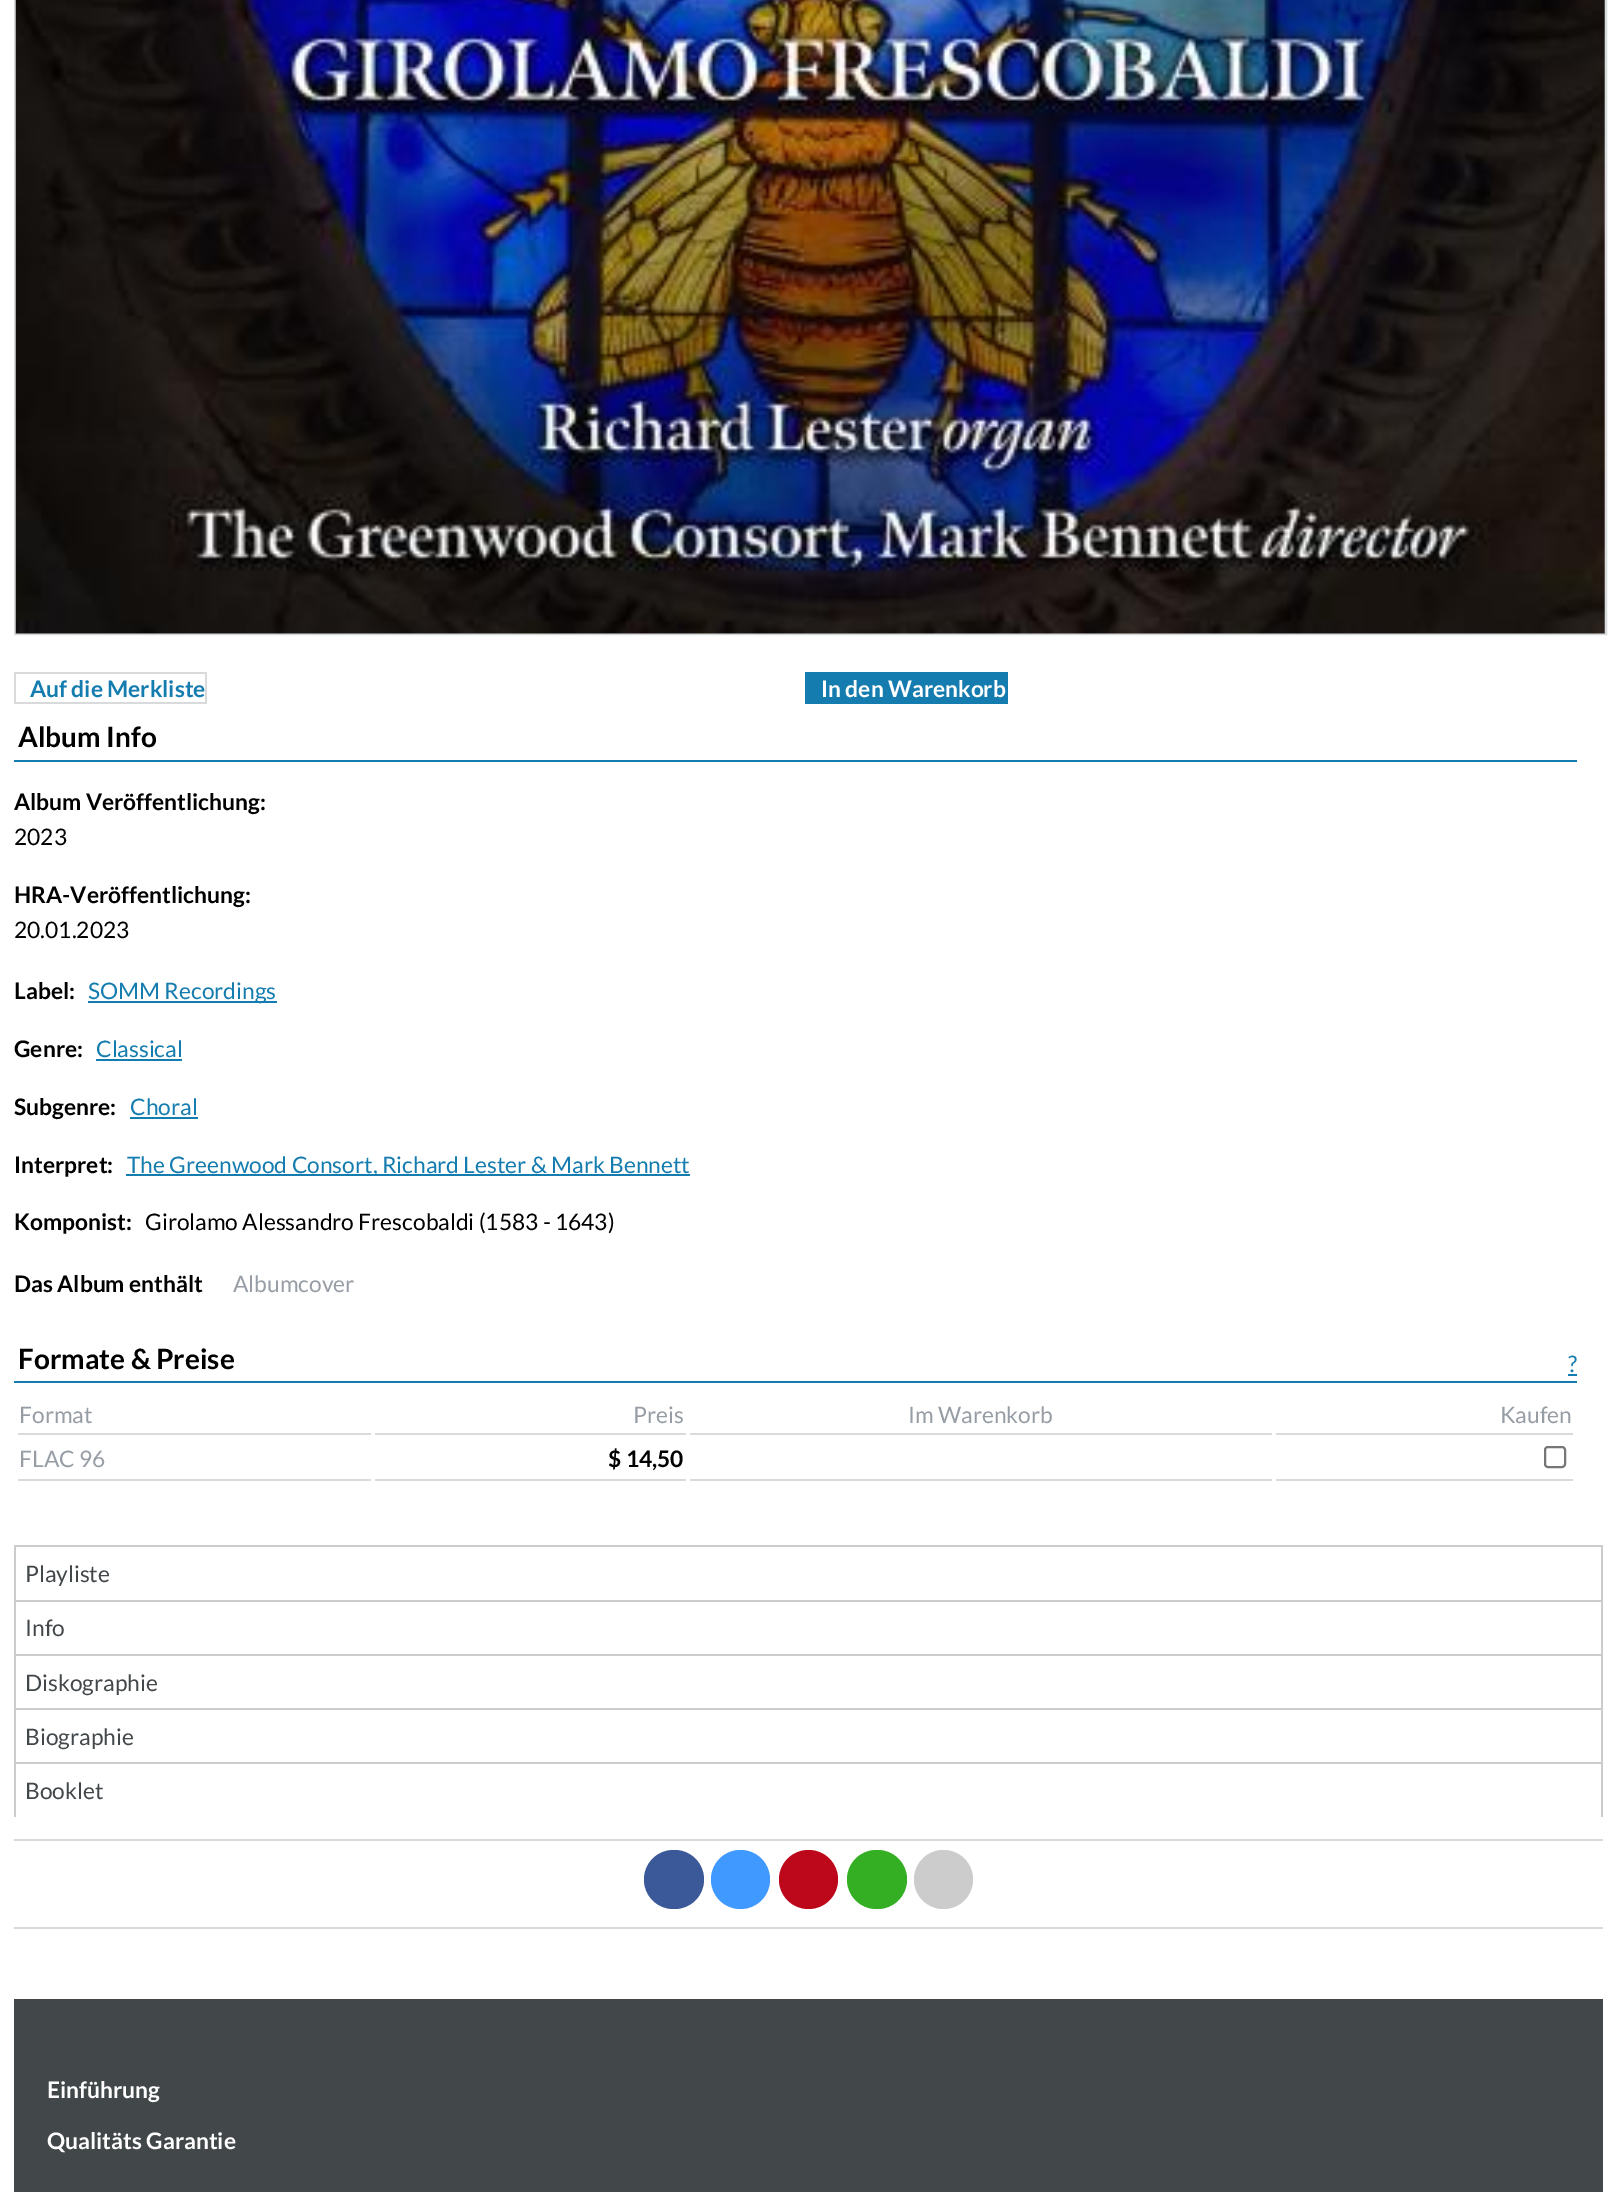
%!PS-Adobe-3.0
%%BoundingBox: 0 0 1617 2192
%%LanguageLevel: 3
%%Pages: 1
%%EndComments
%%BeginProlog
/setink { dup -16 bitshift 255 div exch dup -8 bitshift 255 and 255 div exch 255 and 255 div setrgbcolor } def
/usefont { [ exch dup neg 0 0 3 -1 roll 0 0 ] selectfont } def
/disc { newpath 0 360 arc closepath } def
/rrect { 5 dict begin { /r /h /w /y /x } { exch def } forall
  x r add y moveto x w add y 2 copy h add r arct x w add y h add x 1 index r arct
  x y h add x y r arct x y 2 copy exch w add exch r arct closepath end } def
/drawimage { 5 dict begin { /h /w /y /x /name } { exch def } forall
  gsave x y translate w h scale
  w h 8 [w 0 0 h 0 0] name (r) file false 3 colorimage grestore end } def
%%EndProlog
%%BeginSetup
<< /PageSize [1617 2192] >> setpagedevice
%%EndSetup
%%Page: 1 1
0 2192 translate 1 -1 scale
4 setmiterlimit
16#FFFFFF setink
0 0 1617 2192 rectfill
16#D9DADB setink
2 setlinewidth
15 -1 1591 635 rectstroke
(img1.raw) 15 0 1590 634 drawimage
/Lato-Bold 22.75 usefont
16#147CAF setink
30 697 moveto (Auf die Merkliste) show
[
    [14 672 193 2 16#D9DADB]
    [14 702 16 2 16#D9DADB]
    [14 672 2 32 16#D9DADB]
    [205 672 2 32 16#D9DADB]
    [30 702 177 2 16#D9DADB]
    [805 672 203 32 16#147CAF]
] { aload pop setink rectfill } forall
16#FFFFFF setink
821 697 moveto (In den Warenkorb) show
16#147CAF setink
14 760 1563 2 rectfill
/Lato-Bold 28 usefont
16#000000 setink
18 747 moveto (Album Info) show
/Lato-Bold 22.75 usefont
14 810 moveto (Album Veröffentlichung:) show
/Lato-Regular 22.75 usefont
14 845 moveto (2023) show
/Lato-Bold 22.75 usefont
14 903 moveto (HRA-Veröffentlichung:) show
/Lato-Regular 22.75 usefont
14 938 moveto (20.01.2023) show
/Lato-Bold 22.75 usefont
14 999 moveto (Label:) show
16#147CAF setink
88 1001 189 2 rectfill
/Lato-Regular 22.75 usefont
88 999 moveto (SOMM Recordings) show
/Lato-Bold 22.75 usefont
16#000000 setink
14 1057 moveto (Genre:) show
/Lato-Regular 22.75 usefont
16#147CAF setink
96 1057 moveto (Classical) show
96 1059 86 2 rectfill
/Lato-Bold 22.75 usefont
16#000000 setink
14 1115 moveto (Subgenre:) show
/Lato-Regular 22.75 usefont
16#147CAF setink
130 1115 moveto (Choral) show
130 1117 68 2 rectfill
/Lato-Bold 22.75 usefont
16#000000 setink
14 1173 moveto (Interpret:) show
16#147CAF setink
126 1174 564 2 rectfill
/Lato-Regular 22.75 usefont
127 1173 moveto (The Greenwood Consort, Richard Lester & Mark Bennett) show
/Lato-Bold 22.75 usefont
16#000000 setink
14 1230 moveto (Komponist:) show
/Lato-Regular 22.75 usefont
145 1230 moveto (Girolamo Alessandro Frescobaldi \(1583 - 1643\)) show
/Lato-Bold 22.75 usefont
14 1292 moveto (Das Album enthält) show
/Lato-Regular 22.75 usefont
16#969DA4 setink
233 1292 moveto (Albumcover) show
16#147CAF setink
14 1381 1563 2 rectfill
/Lato-Bold 28 usefont
16#000000 setink
18 1369 moveto (Formate & Preise) show
/Lato-Regular 22.75 usefont
16#147CAF setink
1568 1372 moveto (?) show
1568 1374 9 2 rectfill
16#D9DADB setink
18 1433 353 2 rectfill
16#969DA4 setink
19 1423 moveto (Format) show
16#D9DADB setink
375 1433 311 2 rectfill
16#969DA4 setink
633 1423 moveto (Preis) show
16#D9DADB setink
690 1433 582 2 rectfill
16#969DA4 setink
908 1423 moveto (Im Warenkorb) show
16#D9DADB setink
1276 1433 297 2 rectfill
16#969DA4 setink
1500 1423 moveto (Kaufen) show
16#D9DADB setink
18 1479 353 2 rectfill
16#969DA4 setink
19 1467 moveto (FLAC 96) show
16#D9DADB setink
375 1479 311 2 rectfill
/Lato-Bold 22.75 usefont
16#000000 setink
608 1467 moveto ($ 14,50) show
16#D9DADB setink
1276 1479 297 2 rectfill
16#767676 setink
1545 1447 20 20 3 rrect stroke
[
    [690 1479 582 2 16#D9DADB]
    [14 1545 1589 2 16#CCCCCC]
    [1601 1545 2 55 16#CCCCCC]
    [14 1545 2 55 16#CCCCCC]
] { aload pop setink rectfill } forall
/Lato-Regular 22.75 usefont
16#42474A setink
25 1582 moveto (Playliste) show
[
    [14 1600 1589 2 16#CCCCCC]
    [1601 1600 2 54 16#CCCCCC]
    [14 1600 2 54 16#CCCCCC]
] { aload pop setink rectfill } forall
16#42474A setink
25 1636 moveto (Info) show
[
    [14 1654 1589 2 16#CCCCCC]
    [1601 1654 2 54 16#CCCCCC]
    [14 1654 2 54 16#CCCCCC]
] { aload pop setink rectfill } forall
16#42474A setink
25 1691 moveto (Diskographie) show
[
    [14 1708 1589 2 16#CCCCCC]
    [1601 1708 2 54 16#CCCCCC]
    [14 1708 2 54 16#CCCCCC]
] { aload pop setink rectfill } forall
16#42474A setink
25 1745 moveto (Biographie) show
[
    [14 1762 1589 2 16#CCCCCC]
    [1601 1762 2 55 16#CCCCCC]
    [14 1762 2 55 16#CCCCCC]
] { aload pop setink rectfill } forall
16#42474A setink
25 1799 moveto (Booklet) show
16#D9DADB setink
14 1839 1589 2 rectfill
14 1927 1589 2 rectfill
16#3B5998 setink
644 1850 60 59 29.5 rrect fill
16#4099FF setink
740.5 1879.5 29.5 disc fill
16#BD081C setink
808.5 1879.5 29.5 disc fill
16#34AF23 setink
847 1850 60 59 29.5 rrect fill
16#CCCCCC setink
943.5 1879.5 29.5 disc fill
16#42474A setink
14 1999 1589 193 rectfill
/Lato-Bold 22.75 usefont
16#FFFFFF setink
47 2098 moveto (Einführung) show
47 2149 moveto (Qualitäts Garantie) show
showpage
%%EOF
